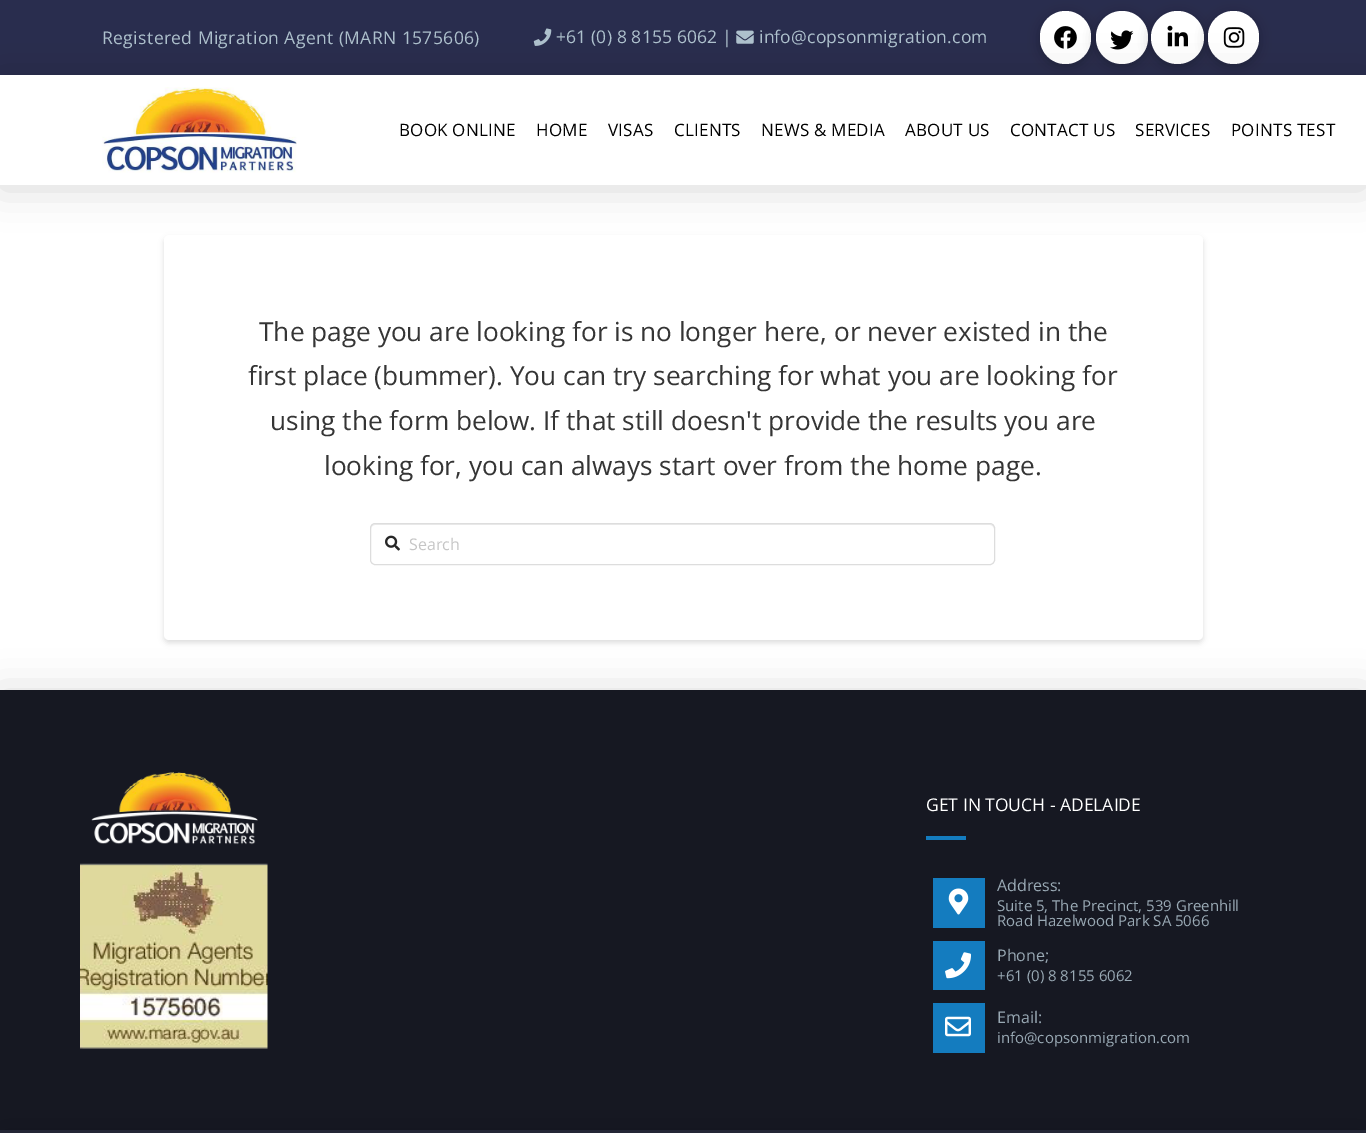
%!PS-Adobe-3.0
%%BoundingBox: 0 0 1366 1133
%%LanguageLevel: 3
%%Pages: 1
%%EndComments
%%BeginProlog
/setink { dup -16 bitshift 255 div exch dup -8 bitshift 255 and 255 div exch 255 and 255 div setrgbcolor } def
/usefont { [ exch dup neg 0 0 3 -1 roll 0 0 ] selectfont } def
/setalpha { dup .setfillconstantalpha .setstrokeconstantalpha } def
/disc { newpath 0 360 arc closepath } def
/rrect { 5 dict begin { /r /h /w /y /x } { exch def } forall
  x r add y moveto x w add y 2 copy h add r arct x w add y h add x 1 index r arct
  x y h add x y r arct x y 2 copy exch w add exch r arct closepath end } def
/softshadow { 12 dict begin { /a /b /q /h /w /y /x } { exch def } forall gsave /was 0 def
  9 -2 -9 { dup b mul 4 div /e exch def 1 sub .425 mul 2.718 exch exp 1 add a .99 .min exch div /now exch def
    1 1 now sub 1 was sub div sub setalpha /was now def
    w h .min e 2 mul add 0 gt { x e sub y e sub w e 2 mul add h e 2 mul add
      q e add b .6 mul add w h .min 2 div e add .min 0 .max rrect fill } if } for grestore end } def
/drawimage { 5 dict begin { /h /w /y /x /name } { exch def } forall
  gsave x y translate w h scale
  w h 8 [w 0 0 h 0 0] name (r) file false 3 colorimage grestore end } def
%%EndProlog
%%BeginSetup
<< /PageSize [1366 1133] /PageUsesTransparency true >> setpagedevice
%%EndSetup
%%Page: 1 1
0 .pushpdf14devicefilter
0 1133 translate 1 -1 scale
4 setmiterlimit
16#FFFFFF setink
0 0 1366 1133 rectfill
16#292D4E setink
0 0 1366 75 rectfill
/OpenSans-Regular 17.5 usefont
16#AEC1CD setink
102 44 moveto 0.4 0 (Registered Migration Agent \(MARN 1575606\)) ashow
(img1.raw) 533 28 19 18 drawimage
556 43 moveto 0.15 0 (+61 \(0\) 8 8155 6062 |) ashow
(img2.raw) 736 30 18 14 drawimage
759 43 moveto 0.15 0 (info@copsonmigration.com) ashow
16#000000 setink
1040 14 51 52 25.5 6 0.25 softshadow
16#FFFFFF setink
1040 11 51 53 25.5 rrect fill
(img3.raw) 1054 26 23 23 drawimage
16#000000 setink
1096 14 52 52 26 6 0.25 softshadow
16#FFFFFF setink
1096 11 52 53 26 rrect fill
16#000000 setink
1151 14 53 52 26 6 0.25 softshadow
(img4.raw) 1110 30 24 20 drawimage
16#FFFFFF setink
1177.5 37.5 26.5 disc fill
(img5.raw) 1167 25 21 22 drawimage
16#000000 setink
1208 14 51 52 25.5 6 0.25 softshadow
16#FFFFFF setink
1208 11 51 53 25.5 rrect fill
(img6.raw) 1223 27 22 21 drawimage
16#000000 setink
164 238 1039 405 5 3 0.13 softshadow
16#FFFFFF setink
164 235 1039 405 5 rrect fill
16#000000 setink
0 78 1366 110 0 20 0.15 softshadow
16#FFFFFF setink
0 75 1366 110 rectfill
(img7.raw) 102 87 195 86 drawimage
/OpenSans-Regular 17 usefont
16#000000 setink
399 136 moveto 0.25 0 (BOOK ONLINE) ashow
536 136 moveto 0.25 0 (HOME) ashow
608 136 moveto 0.25 0 (VISAS) ashow
674 136 moveto 0.25 0 (CLIENTS) ashow
761 136 moveto 0.25 0 (NEWS & MEDIA) ashow
905 136 moveto 0.25 0 (ABOUT US) ashow
1010 136 moveto 0.25 0 (CONTACT US) ashow
1135 136 moveto 0.25 0 (SERVICES) ashow
1231 136 moveto 0.25 0 (POINTS TEST) ashow
/OpenSans-Regular 26.25 usefont
16#353535 setink
[
    [(The page you are looking for is no longer here, or never existed in the) 259 341]
    [(first place \(bummer\). You can try searching for what you are looking for) 248 385]
    [(using the form below. If that still doesn't provide the results you are) 270 430]
    [(looking for, you can always start over from the home page.) 324 475]
] { aload pop moveto show } forall
16#ECECEC setink
375 525 moveto 990 525 lineto 992 525 994 527 994 529 curveto 994 528 lineto 994 526 992 524 990 524 curveto 375 524 lineto 373 524 371 526 371 528 curveto 371 529 lineto 371 527 373 525 375 525 curveto closepath fill
16#DDDDDD setink
370.5 523.5 624 41 4.5 rrect stroke
(img8.raw) 385 535 15 16 drawimage
/OpenSans-Regular 16 usefont
16#C5C5C5 setink
409 550 moveto (Search) show
16#000000 setink
0 693 1366 440 0 20 0.15 softshadow
16#161822 setink
0 690 1366 440 rectfill
(img9.raw) 91 772 167 73 drawimage
(img10.raw) 80 863 188 186 drawimage
/OpenSans-Regular 17.5 usefont
16#FFFFFF setink
926 811 moveto (GET IN TOUCH - ADELAIDE) show
16#147CBF setink
926 836 40 4 rectfill
933 878 52 50 rectfill
(img11.raw) 948 888 21 27 drawimage
/OpenSans-Regular 16 usefont
16#99A9B4 setink
997 891 moveto (Address:) show
/OpenSans-Regular 15 usefont
997 911 moveto (Suite 5, The Precinct, 539 Greenhill) show
997 926 moveto (Road Hazelwood Park SA 5066) show
16#147CBF setink
933 941 52 49 rectfill
(img12.raw) 945 952 26 27 drawimage
/OpenSans-Regular 16 usefont
16#99A9B4 setink
997 961 moveto (Phone;) show
/OpenSans-Regular 15 usefont
997 981 moveto (+61 \(0\) 8 8155 6062) show
16#147CBF setink
933 1003 52 50 rectfill
(img13.raw) 945 1016 26 21 drawimage
/OpenSans-Regular 16 usefont
16#99A9B4 setink
997 1023 moveto (Email:) show
/OpenSans-Regular 15 usefont
997 1043 moveto (info@copsonmigration.com) show
16#000000 setink
0 1133 1366 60 0 20 0.15 softshadow
16#232635 setink
0 1130 1366 3 rectfill
.poppdf14devicefilter showpage
%%EOF
